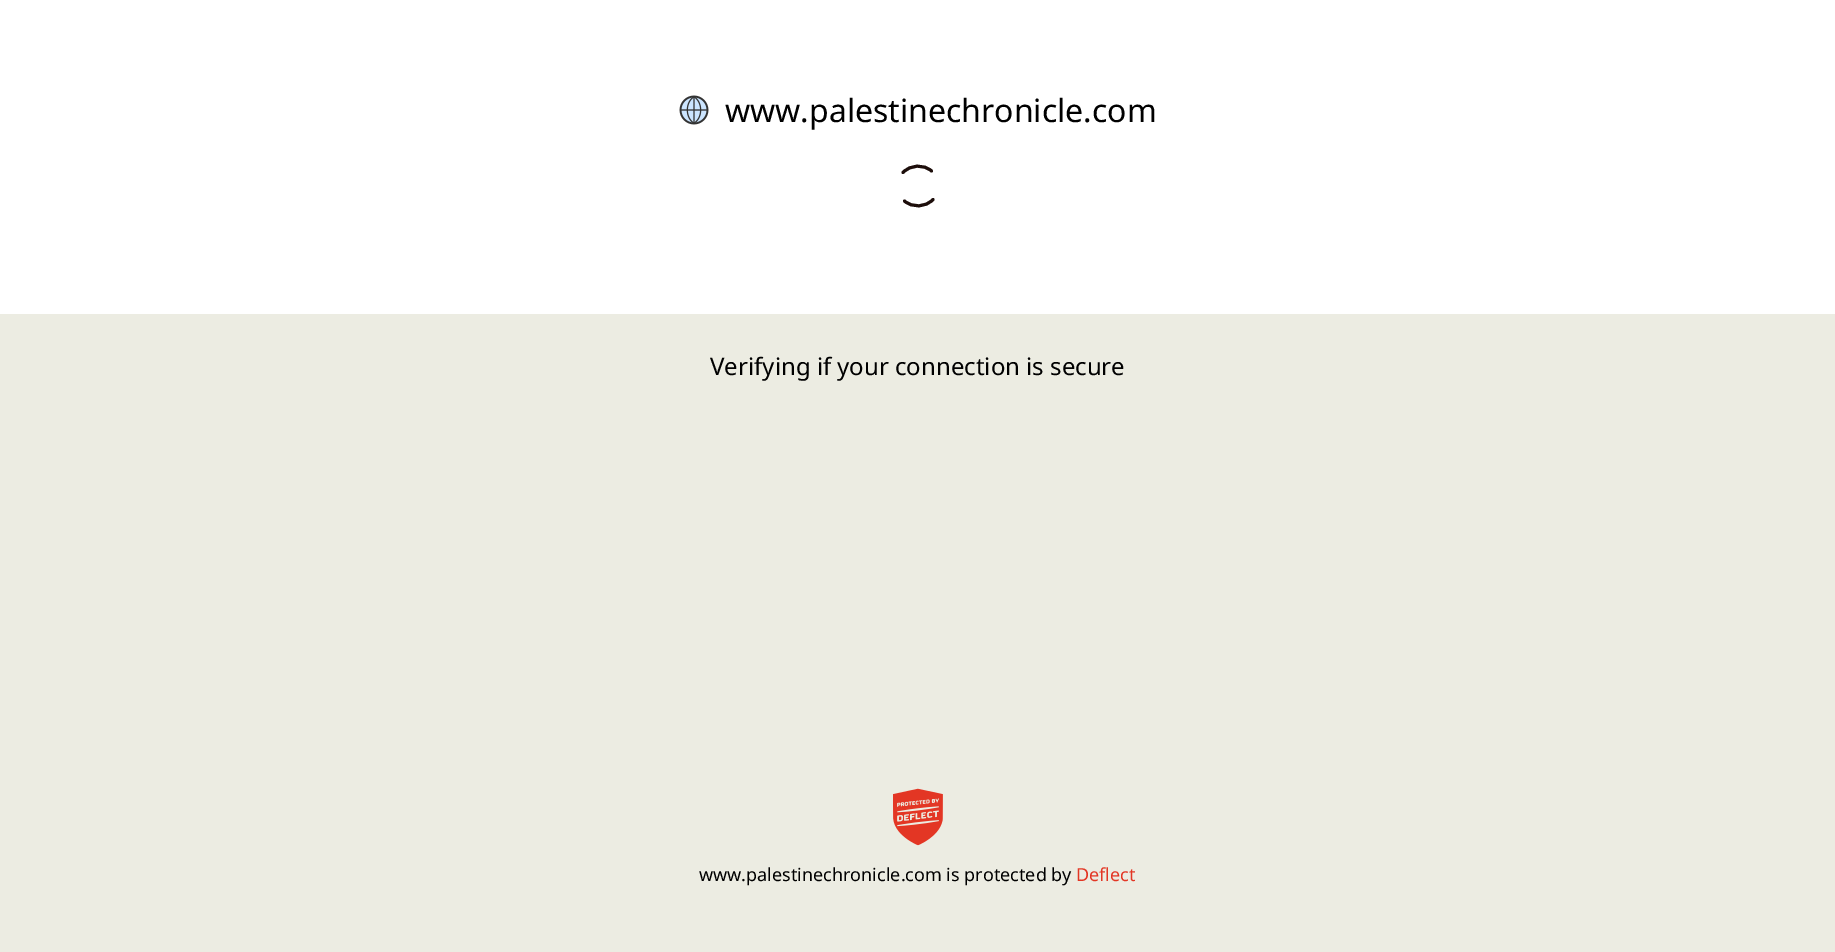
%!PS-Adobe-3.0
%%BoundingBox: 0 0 1835 952
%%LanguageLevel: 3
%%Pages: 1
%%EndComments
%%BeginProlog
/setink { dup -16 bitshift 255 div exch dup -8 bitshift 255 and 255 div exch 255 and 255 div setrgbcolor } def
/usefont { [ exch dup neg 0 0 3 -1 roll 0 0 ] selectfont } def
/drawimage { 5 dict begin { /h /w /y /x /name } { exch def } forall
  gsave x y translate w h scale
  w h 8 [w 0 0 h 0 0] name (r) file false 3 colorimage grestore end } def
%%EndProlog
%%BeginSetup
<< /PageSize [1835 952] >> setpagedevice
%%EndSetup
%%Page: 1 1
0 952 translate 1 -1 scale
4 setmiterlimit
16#FFFFFF setink
0 0 1835 952 rectfill
(img1.raw) 679 95 30 30 drawimage
/NotoSans-Regular 32 usefont
16#000000 setink
725 122 moveto (www.palestinechronicle.com) show
16#1D0E0B setink
3 setlinewidth
1 setlinecap
933 199.5 moveto 925.5 207.5 912.5 208 904.5 201 curveto 903 172.5 moveto 910.5 164.5 923.5 164 931.5 171 curveto stroke
16#ECECE2 setink
0 314 1835 638 rectfill
/NotoSans-Regular 24 usefont
16#000000 setink
710 375 moveto (Verifying if your connection is secure) show
(img2.raw) 893 788 50 58 drawimage
/NotoSans-Regular 18 usefont
699 881 moveto (www.palestinechronicle.com is protected by) show
16#E33624 setink
1076 881 moveto (Deflect) show
showpage
%%EOF
